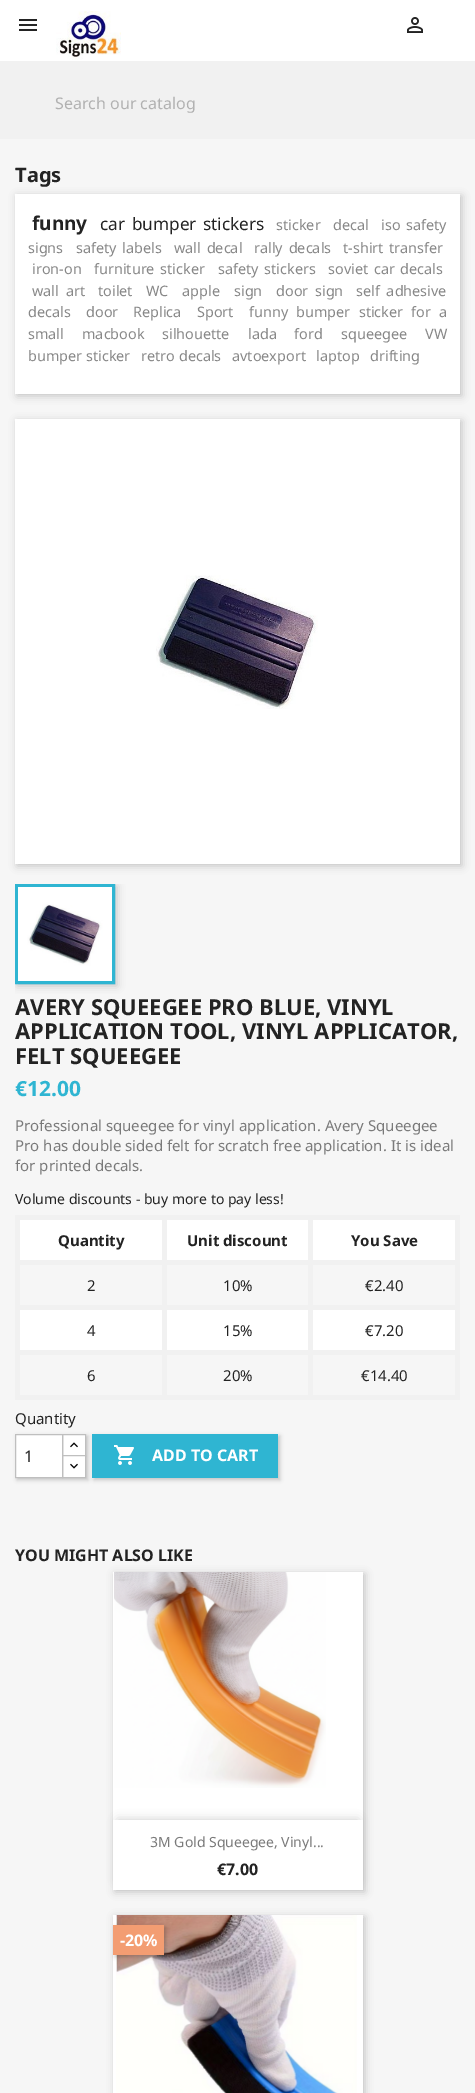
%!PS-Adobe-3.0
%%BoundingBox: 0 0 475 2093
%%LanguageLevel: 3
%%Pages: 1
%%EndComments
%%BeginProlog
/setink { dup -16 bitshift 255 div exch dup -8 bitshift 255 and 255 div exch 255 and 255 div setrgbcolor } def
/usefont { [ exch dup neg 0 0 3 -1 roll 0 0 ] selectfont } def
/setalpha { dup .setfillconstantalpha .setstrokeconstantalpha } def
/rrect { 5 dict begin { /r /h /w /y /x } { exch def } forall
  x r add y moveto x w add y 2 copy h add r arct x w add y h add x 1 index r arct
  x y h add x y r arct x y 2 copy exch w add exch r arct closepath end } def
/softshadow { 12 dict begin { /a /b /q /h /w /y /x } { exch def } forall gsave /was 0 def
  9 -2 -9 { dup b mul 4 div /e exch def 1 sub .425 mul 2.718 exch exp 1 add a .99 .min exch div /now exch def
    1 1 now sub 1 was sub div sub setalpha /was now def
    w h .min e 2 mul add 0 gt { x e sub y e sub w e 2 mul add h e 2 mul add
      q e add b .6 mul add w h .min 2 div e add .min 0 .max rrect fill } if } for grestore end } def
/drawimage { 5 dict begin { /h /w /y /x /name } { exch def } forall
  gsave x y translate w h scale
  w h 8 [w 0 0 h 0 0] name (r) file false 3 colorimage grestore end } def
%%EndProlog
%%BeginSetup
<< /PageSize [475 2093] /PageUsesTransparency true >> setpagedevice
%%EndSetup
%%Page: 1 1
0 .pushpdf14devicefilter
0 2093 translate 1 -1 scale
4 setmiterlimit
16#F1F1F1 setink
0 0 475 2093 rectfill
16#FFFFFF setink
0 0 475 61 rectfill
(img1.raw) 19 19 18 12 drawimage
(img2.raw) 56 11 65 49 drawimage
(img3.raw) 407 17 16 16 drawimage
/NotoSans-Regular 16 usefont
16#B1B1B1 setink
55 109 moveto (Search our catalog) show
16#F6F6F6 setink
0 139 475 1954 rectfill
16#000000 setink
17 196 445 200 0 4 0.2 softshadow
/NotoSans-Bold 20 usefont
16#232323 setink
15 182 moveto (Tags) show
16#FFFFFF setink
15 194 445 200 rectfill
/NotoSans-Bold 19 usefont
16#232323 setink
32 230 moveto (funny) show
/NotoSans-Regular 17.25 usefont
100 230 moveto 2 0 32 (car bumper stickers) widthshow
/NotoSans-Regular 14.4 usefont
16#888888 setink
276 230 moveto (sticker) show
333 230 moveto (decal) show
381 230 moveto 2 0 32 (iso safety) widthshow
28 253 moveto (signs) show
76 253 moveto 2 0 32 (safety labels) widthshow
174 253 moveto 2 0 32 (wall decal) widthshow
254 253 moveto 2 0 32 (rally decals) widthshow
343 253 moveto 2 0 32 (t-shirt transfer) widthshow
32 274 moveto (iron-on) show
94 274 moveto 2 0 32 (furniture sticker) widthshow
218 274 moveto 2 0 32 (safety stickers) widthshow
328 274 moveto 2 0 32 (soviet car decals) widthshow
32 296 moveto 3 0 32 (wall art) widthshow
[
    [(toilet) 98 296]
    [(WC) 146 296]
    [(apple) 182 296]
    [(sign) 234 296]
] { aload pop moveto show } forall
276 296 moveto 3 0 32 (door sign) widthshow
356 296 moveto 3 0 32 (self adhesive) widthshow
[
    [(decals) 28 317]
    [(door) 86 317]
    [(Replica) 133 317]
    [(Sport) 197 317]
] { aload pop moveto show } forall
249 317 moveto 4.5 0 32 (funny bumper sticker for a) widthshow
[
    [(small) 28 339]
    [(macbook) 82 339]
    [(silhouette) 162 339]
    [(lada) 248 339]
    [(ford) 294 339]
    [(squeegee) 341 339]
    [(VW) 425 339]
    [(bumper sticker) 28 361]
    [(retro decals) 141 361]
    [(avtoexport) 232 361]
    [(laptop) 316 361]
    [(drifting) 370 361]
] { aload pop moveto show } forall
16#000000 setink
17 421 445 445 0 4 0.2 softshadow
16#FFFFFF setink
15 419 445 445 rectfill
(img4.raw) 156 575 162 134 drawimage
gsave
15 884 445 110 rectclip
16#000000 setink
17 886 100 100 0 4 0.2 softshadow
grestore
16#2FB5D2 setink
3 setlinewidth
16.5 885.5 97 97 rectstroke
(img5.raw) 18 887 94 94 drawimage
/NotoSans-Bold 22 usefont
16#232323 setink
[
    [(AVERY SQUEEGEE PRO BLUE, VINYL) 15 1015]
    [(APPLICATION TOOL, VINYL APPLICATOR,) 15 1039]
    [(FELT SQUEEGEE) 15 1064]
] { aload pop moveto show } forall
/NotoSans-Bold 21 usefont
16#2FB5D2 setink
15 1096 moveto (€12.00) show
/NotoSans-Regular 15 usefont
16#7A7A7A setink
[
    [(Professional squeegee for vinyl application. Avery Squeegee) 15 1131]
    [(Pro has double sided felt for scratch free application. It is ideal) 15 1151]
    [(for printed decals.) 15 1171]
] { aload pop moveto show } forall
/NotoSans-Regular 14 usefont
16#232323 setink
15 1204 moveto (Volume discounts - buy more to pay less!) show
[
    [20 1220 142 40 16#FFFFFF]
    [308 1215 152 5 16#F1F1F1]
    [308 1260 152 5 16#F1F1F1]
    [308 1305 152 5 16#F1F1F1]
    [20 1310 435 40 16#FFFFFF]
    [308 1350 152 5 16#F1F1F1]
    [455 1350 5 50 16#F1F1F1]
    [308 1395 152 5 16#F1F1F1]
    [308 1350 5 50 16#F1F1F1]
    [162 1350 151 5 16#F1F1F1]
    [308 1305 5 50 16#F1F1F1]
    [162 1305 151 5 16#F1F1F1]
    [308 1260 5 50 16#F1F1F1]
    [162 1260 151 5 16#F1F1F1]
    [308 1215 5 50 16#F1F1F1]
    [162 1215 151 5 16#F1F1F1]
    [162 1395 151 5 16#F1F1F1]
    [162 1350 5 50 16#F1F1F1]
    [15 1350 152 5 16#F1F1F1]
    [162 1305 5 50 16#F1F1F1]
    [15 1305 152 5 16#F1F1F1]
    [162 1260 5 50 16#F1F1F1]
    [15 1260 152 5 16#F1F1F1]
    [162 1215 5 50 16#F1F1F1]
    [15 1215 152 5 16#F1F1F1]
    [15 1395 152 5 16#F1F1F1]
    [15 1350 5 50 16#F1F1F1]
    [15 1305 5 50 16#F1F1F1]
    [15 1260 5 50 16#F1F1F1]
    [15 1215 5 50 16#F1F1F1]
] { aload pop setink rectfill } forall
/NotoSans-Bold 15 usefont
16#232323 setink
58 1246 moveto (Quantity) show
16#FFFFFF setink
167 1220 141 40 rectfill
16#232323 setink
187 1246 moveto (Unit discount) show
[
    [313 1220 142 40 16#FFFFFF]
    [455 1305 5 50 16#F1F1F1]
    [455 1260 5 50 16#F1F1F1]
    [455 1215 5 50 16#F1F1F1]
] { aload pop setink rectfill } forall
16#232323 setink
351 1246 moveto (You Save) show
/NotoSans-Regular 15 usefont
[
    [(2) 87 1291]
    [(10%) 223 1291]
    [(€2.40) 365 1291]
    [(4) 87 1336]
    [(15%) 223 1336]
    [(€7.20) 365 1336]
    [(6) 87 1381]
    [(20%) 223 1381]
    [(€14.40) 361 1381]
    [(Quantity) 15 1424]
] { aload pop moveto show } forall
16#000000 setink
94 1436 186 44 0 2 0.2 softshadow
16#2FB5D2 setink
92 1434 186 44 rectfill
16#000000 setink
17 1436 71 44 0 2 0.2 softshadow
16#FFFFFF setink
63 1435 22 20 rectfill
16#BFBFBF setink
1 setlinewidth
62.5 1434.5 23 22 rectstroke
16#FFFFFF setink
62.5 1455.5 moveto 85.5 1455.5 lineto 85.5 1477.5 lineto 62.5 1477.5 lineto closepath gsave fill grestore
16#BFBFBF setink
stroke
16#FFFFFF setink
15.5 1434.5 moveto 62.5 1434.5 lineto 62.5 1477.5 lineto 15.5 1477.5 lineto closepath gsave fill grestore
16#BFBFBF setink
stroke
/NotoSans-Regular 16 usefont
16#232323 setink
24 1462 moveto (1) show
(img6.raw) 70 1442 8 6 drawimage
(img7.raw) 70 1463 8 6 drawimage
(img8.raw) 114 1445 20 20 drawimage
/NotoSans-Bold 16 usefont
16#FFFFFF setink
152 1461 moveto (ADD TO CART) show
16#232323 setink
15 1561 moveto (YOU MIGHT ALSO LIKE) show
16#000000 setink
115 1574 250 318 0 4 0.2 softshadow
16#FFFFFF setink
113 1572 250 318 rectfill
(img9.raw) 114 1572 212 216 drawimage
gsave
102 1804 moveto 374 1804 lineto 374 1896 lineto 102 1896 lineto closepath 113 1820 moveto 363 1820 lineto 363 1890 lineto 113 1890 lineto closepath eoclip newpath
16#000000 setink
118 1820 240 60 0 5 0.2 softshadow
grestore
/NotoSans-Regular 14 usefont
16#7A7A7A setink
150 1847 moveto (3M Gold Squeegee, Vinyl...) show
/NotoSans-Bold 16 usefont
16#232323 setink
217 1875 moveto (€7.00) show
16#000000 setink
115 1917 250 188 0 4 0.2 softshadow
16#FFFFFF setink
113 1915 250 178 rectfill
(img10.raw) 116 1915 241 178 drawimage
16#000000 setink
115 1927 51 30 0 2 0.2 softshadow
16#F39D72 setink
113 1925 51 30 rectfill
16#FFFFFF setink
120 1946 moveto (-20%) show
.poppdf14devicefilter showpage
%%EOF
